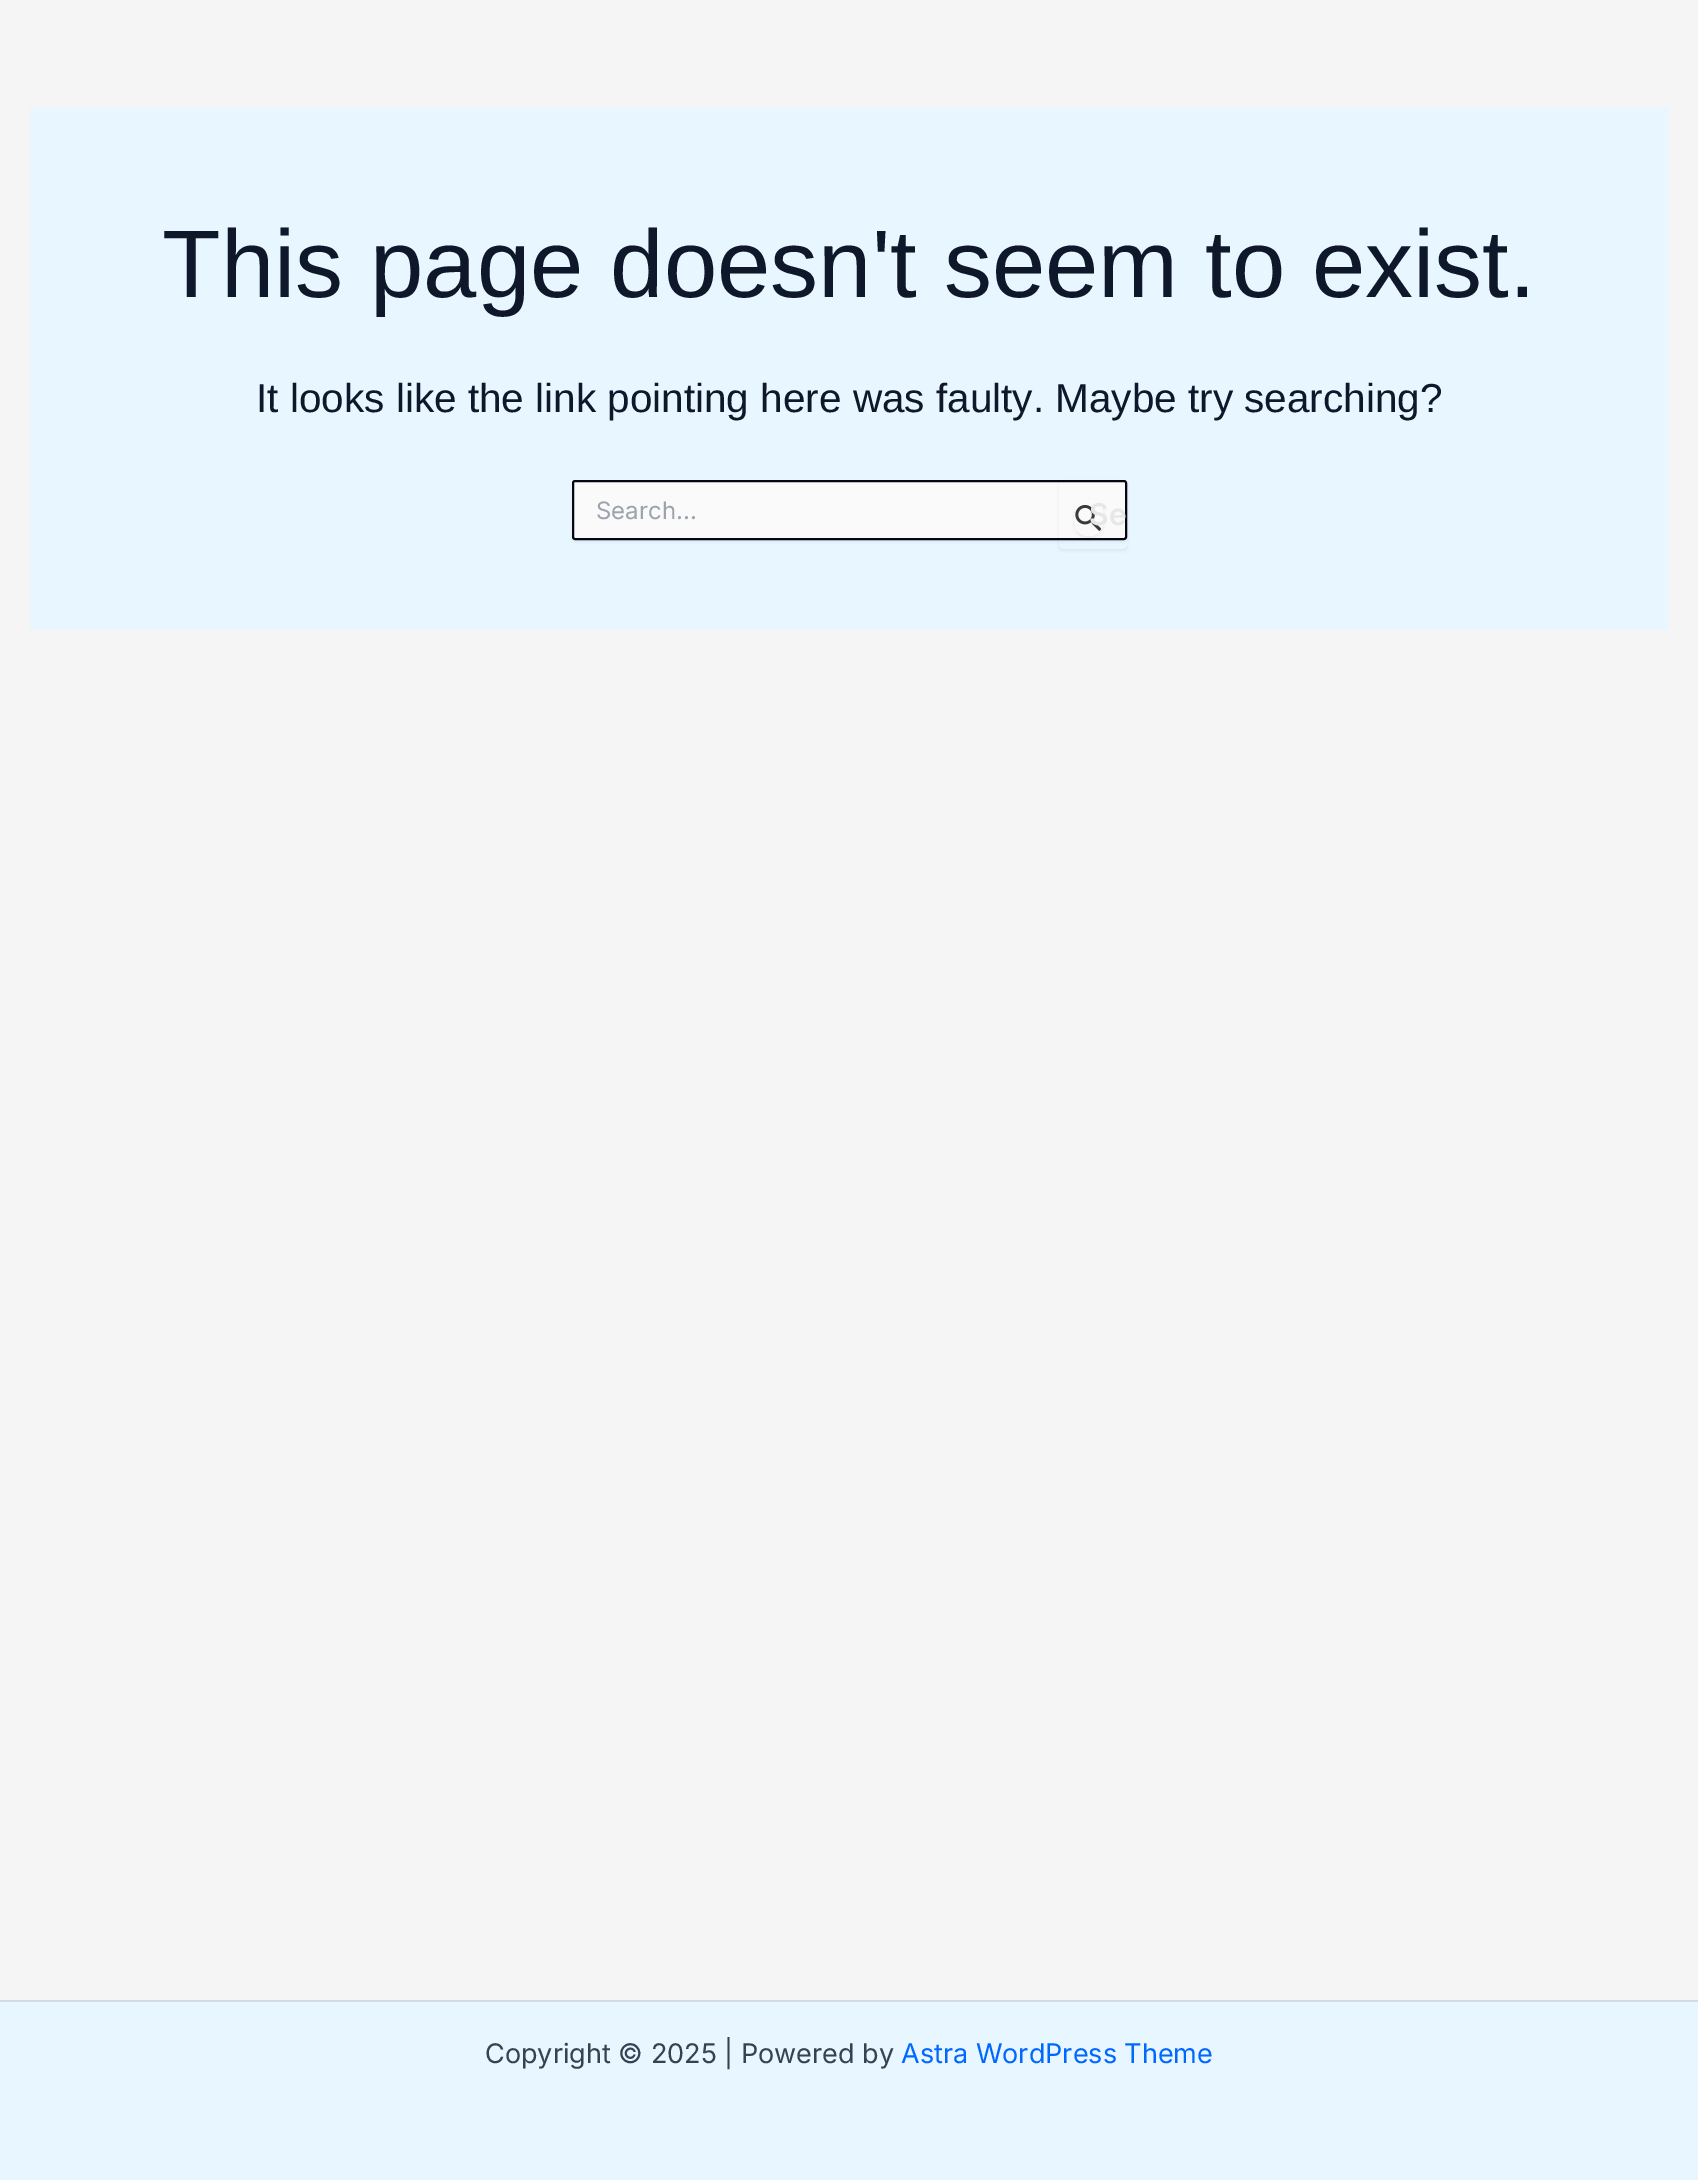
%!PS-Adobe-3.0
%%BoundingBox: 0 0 1698 2180
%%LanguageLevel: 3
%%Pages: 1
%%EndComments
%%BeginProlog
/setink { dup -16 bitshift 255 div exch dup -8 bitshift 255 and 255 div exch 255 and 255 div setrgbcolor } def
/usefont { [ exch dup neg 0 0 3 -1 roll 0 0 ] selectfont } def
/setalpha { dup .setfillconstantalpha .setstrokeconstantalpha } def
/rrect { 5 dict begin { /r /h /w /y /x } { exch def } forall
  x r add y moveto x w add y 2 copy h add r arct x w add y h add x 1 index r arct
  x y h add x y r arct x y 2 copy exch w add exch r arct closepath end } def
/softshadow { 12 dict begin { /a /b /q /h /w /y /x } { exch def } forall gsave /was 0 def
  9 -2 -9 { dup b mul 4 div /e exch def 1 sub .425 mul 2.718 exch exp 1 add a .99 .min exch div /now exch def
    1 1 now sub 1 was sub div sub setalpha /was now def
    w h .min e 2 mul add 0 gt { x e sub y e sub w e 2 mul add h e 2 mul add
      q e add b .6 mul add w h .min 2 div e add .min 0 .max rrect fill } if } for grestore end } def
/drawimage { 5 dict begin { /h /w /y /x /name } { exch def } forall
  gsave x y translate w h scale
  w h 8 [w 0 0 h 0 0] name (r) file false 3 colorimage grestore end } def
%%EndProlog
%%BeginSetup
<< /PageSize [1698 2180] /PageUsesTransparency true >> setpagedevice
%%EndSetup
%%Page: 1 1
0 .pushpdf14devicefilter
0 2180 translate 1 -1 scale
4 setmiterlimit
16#F5F5F5 setink
0 0 1698 2180 rectfill
16#E7F6FF setink
30 108 1638 522 rectfill
/LiberationSans-Regular 96 usefont
16#0F172A setink
162 297 moveto (This page doesn't seem to exist.) show
/LiberationSans-Regular 40.5 usefont
256 412 moveto (It looks like the link pointing here was faulty. Maybe try searching?) show
16#000000 setink
572 482 555 60 3 1.5 0.05 softshadow
16#FAFAFA setink
573 481 553 58 2 rrect gsave fill grestore
16#070614 setink
2 setlinewidth
stroke
/Inter-Regular 24 usefont
16#9CA3AF setink
596 519 moveto (Search...) show
gsave
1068 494 moveto 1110 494 lineto 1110 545 lineto 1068 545 lineto closepath 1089 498 moveto 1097.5 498 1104 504.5 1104 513 curveto 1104 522 lineto 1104 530.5 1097.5 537 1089 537 curveto 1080.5 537 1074 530.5 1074 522 curveto 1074 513 lineto 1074 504.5 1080.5 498 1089 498 curveto closepath eoclip newpath
16#000000 setink
1074 500 30 39 15 1.5 0.05 softshadow
grestore
(img1.raw) 1075 504 26 28 drawimage
gsave
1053 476 moveto 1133 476 lineto 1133 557 lineto 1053 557 lineto closepath 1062 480 moveto 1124 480 lineto 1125.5 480 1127 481.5 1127 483 curveto 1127 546 lineto 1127 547.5 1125.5 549 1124 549 curveto 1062 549 lineto 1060.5 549 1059 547.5 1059 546 curveto 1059 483 lineto 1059 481.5 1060.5 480 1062 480 curveto closepath eoclip newpath
16#000000 setink
1059 482 68 69 3 1.5 0.05 softshadow
grestore
/Inter-SemiBold 30 usefont
16#E7E7E7 setink
1089 525 moveto (Se) show
16#E7F6FF setink
0 2002 1698 178 rectfill
16#D1DAE5 setink
0 2000 1698 2 rectfill
/Inter-Regular 27 usefont
16#364151 setink
485 2063 moveto (Copyright © 2025 | Powered by) show
16#0067FF setink
901 2063 moveto (Astra WordPress Theme) show
.poppdf14devicefilter showpage
%%EOF
